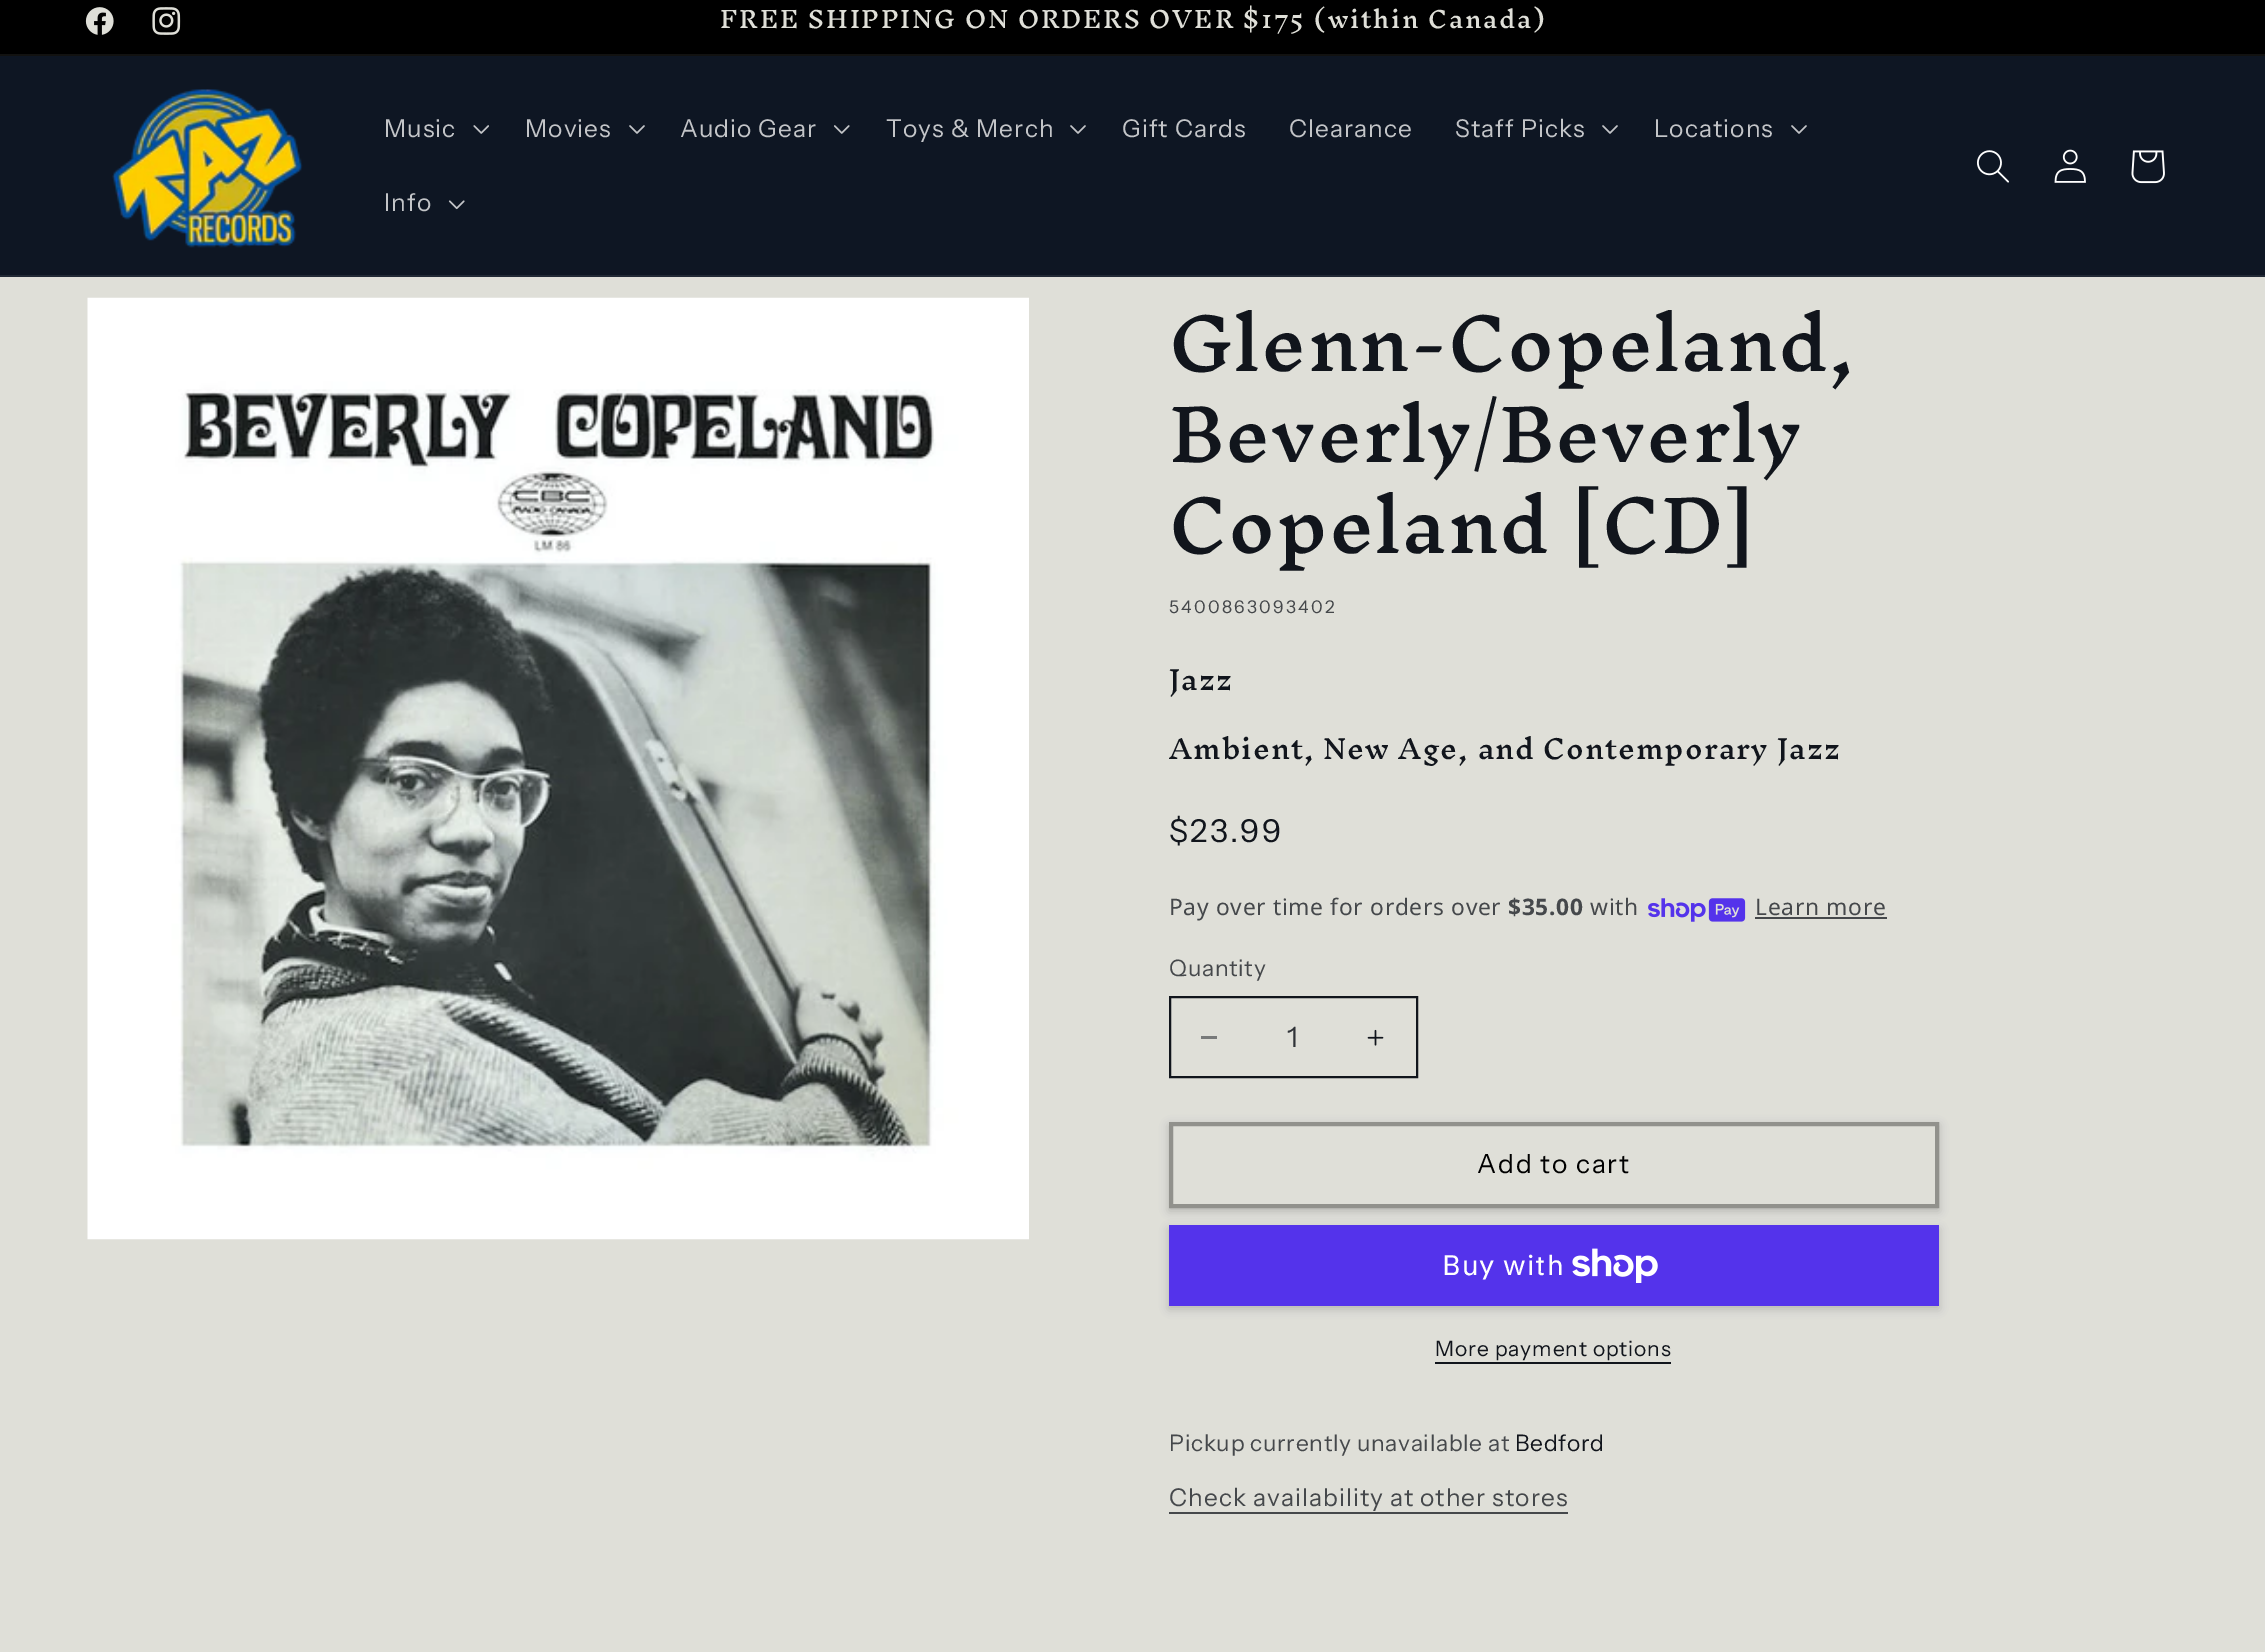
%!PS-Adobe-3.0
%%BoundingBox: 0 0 2265 1652
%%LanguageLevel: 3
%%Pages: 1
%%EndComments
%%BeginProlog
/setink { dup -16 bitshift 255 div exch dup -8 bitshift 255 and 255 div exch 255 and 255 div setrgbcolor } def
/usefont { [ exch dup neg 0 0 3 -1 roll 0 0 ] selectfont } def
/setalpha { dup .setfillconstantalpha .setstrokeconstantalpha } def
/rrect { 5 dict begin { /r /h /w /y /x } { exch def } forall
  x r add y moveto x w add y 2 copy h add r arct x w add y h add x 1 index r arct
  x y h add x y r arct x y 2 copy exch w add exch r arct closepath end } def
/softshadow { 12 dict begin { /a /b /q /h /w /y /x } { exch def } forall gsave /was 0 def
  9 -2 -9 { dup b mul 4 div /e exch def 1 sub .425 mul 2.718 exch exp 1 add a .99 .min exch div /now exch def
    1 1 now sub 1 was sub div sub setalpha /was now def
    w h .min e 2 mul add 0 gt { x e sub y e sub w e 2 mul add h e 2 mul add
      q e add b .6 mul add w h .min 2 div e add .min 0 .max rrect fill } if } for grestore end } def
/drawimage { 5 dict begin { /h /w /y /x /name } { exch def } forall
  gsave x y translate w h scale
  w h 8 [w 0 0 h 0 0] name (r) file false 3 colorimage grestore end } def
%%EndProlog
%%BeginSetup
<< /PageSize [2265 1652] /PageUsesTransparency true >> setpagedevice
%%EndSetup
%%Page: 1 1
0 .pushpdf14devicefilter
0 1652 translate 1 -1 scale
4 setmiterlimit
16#DFDFD8 setink
0 0 2265 1652 rectfill
16#000000 setink
0 0 2265 54 rectfill
16#121211 setink
0 54 2265 2 rectfill
(img1.raw) 85 7 29 28 drawimage
(img2.raw) 152 7 29 28 drawimage
/InknutAntiqua-Medium 22.75 usefont
16#DFDFD8 setink
720 28 moveto 1.75 0 (FREE SHIPPING ON ORDERS OVER $175 \(within Canada\)) ashow
16#0E1623 setink
0 56 2265 219 rectfill
16#212935 setink
0 275 2265 2 rectfill
(img3.raw) 112 89 191 159 drawimage
/InstrumentSans-Regular 24.5 usefont
16#C3C5C8 setink
384 137 moveto 1.05 0 (Music) ashow
(img4.raw) 473 125 16 9 drawimage
525 137 moveto 1.05 0 (Movies) ashow
(img5.raw) 629 125 16 9 drawimage
680 137 moveto 1.05 0 (Audio Gear) ashow
(img6.raw) 834 125 16 9 drawimage
886 137 moveto 1.05 0 (Toys & Merch) ashow
(img5.raw) 1070 125 16 9 drawimage
1122 137 moveto 1.05 0 (Gift Cards) ashow
1289 137 moveto 1.05 0 (Clearance) ashow
1455 137 moveto 1.05 0 (Staff Picks) ashow
(img5.raw) 1602 125 16 9 drawimage
1654 137 moveto 1.05 0 (Locations) ashow
(img5.raw) 1791 125 16 9 drawimage
384 211 moveto 1.05 0 (Info) ashow
(img7.raw) 448 200 17 10 drawimage
(img8.raw) 1977 150 32 33 drawimage
(img9.raw) 2054 149 32 34 drawimage
(img10.raw) 2131 150 34 34 drawimage
(img11.raw) 87 297 942 943 drawimage
/InknutAntiqua-Medium 70 usefont
16#11151C setink
1169 371 moveto 1.05 0 (Glenn-Copeland,) ashow
1169 462 moveto 1.05 0 (Beverly/Beverly) ashow
1169 553 moveto 1.05 0 (Copeland [CD]) ashow
/InstrumentSans-Regular 17.5 usefont
16#45484B setink
1169 613 moveto 2.25 0 (5400863093402) ashow
/InknutAntiqua-Medium 26.25 usefont
16#11151C setink
1169 690 moveto 1.05 0 (Jazz) ashow
1169 759 moveto 1.05 0 (Ambient, New Age, and Contemporary Jazz) ashow
/InstrumentSans-Regular 31.5 usefont
1169 842 moveto 2.25 0 ($23.99) ashow
/NotoSans-Regular 22.75 usefont
16#45484B setink
1169 915 moveto 0.7 0 (Pay over time for orders over) ashow
/NotoSans-Bold 22.75 usefont
1508 915 moveto 0.7 0 ($35.00) ashow
/NotoSans-Regular 22.75 usefont
1590 915 moveto 0.7 0 (with) ashow
(img12.raw) 1648 898 98 24 drawimage
1755 915 moveto 0.7 0 (Learn more) ashow
1755 917 132 2 rectfill
/InstrumentSans-Regular 22.75 usefont
1169 976 moveto 0.7 0 (Quantity) ashow
16#787A7A setink
1201 1036 16 3 rectfill
(img13.raw) 1367 1029 17 17 drawimage
16#11151C setink
2 setlinewidth
1170 997 247 80 rectstroke
/InstrumentSans-Regular 28 usefont
16#303338 setink
1287 1047 moveto (1) show
16#11151C setink
1169 1125 770 86 0 4.5 0.2 softshadow
16#DFDFD8 setink
1173 1126 762 78 rectfill
16#91918C setink
4 setlinewidth
1171 1124 766 82 rectstroke
/InstrumentSans-Regular 26.25 usefont
16#000000 setink
1477 1173 moveto 1.75 0 (Add to cart) ashow
16#11151C setink
1169 1229 770 80 0 4.5 0.2 softshadow
16#5433EB setink
1169 1225 770 81 rectfill
/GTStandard-Regular 28 usefont
16#FFFFFF setink
1442 1275 moveto 1.05 0 (Buy with) ashow
(img14.raw) 1572 1248 86 35 drawimage
/InstrumentSans-Regular 21 usefont
16#11151C setink
1435 1356 moveto 0.9 0 (More payment options) ashow
1435 1362 236 2 rectfill
/InstrumentSans-Regular 22.75 usefont
16#45484B setink
1169 1451 moveto 0.7 0 (Pickup currently unavailable at) ashow
16#11151C setink
1515 1451 moveto 0.7 0 (Bedford) ashow
/InstrumentSans-Regular 24.5 usefont
16#45484B setink
1169 1506 moveto 1.05 0 (Check availability at other stores) ashow
1169 1512 399 2 rectfill
.poppdf14devicefilter showpage
%%EOF
